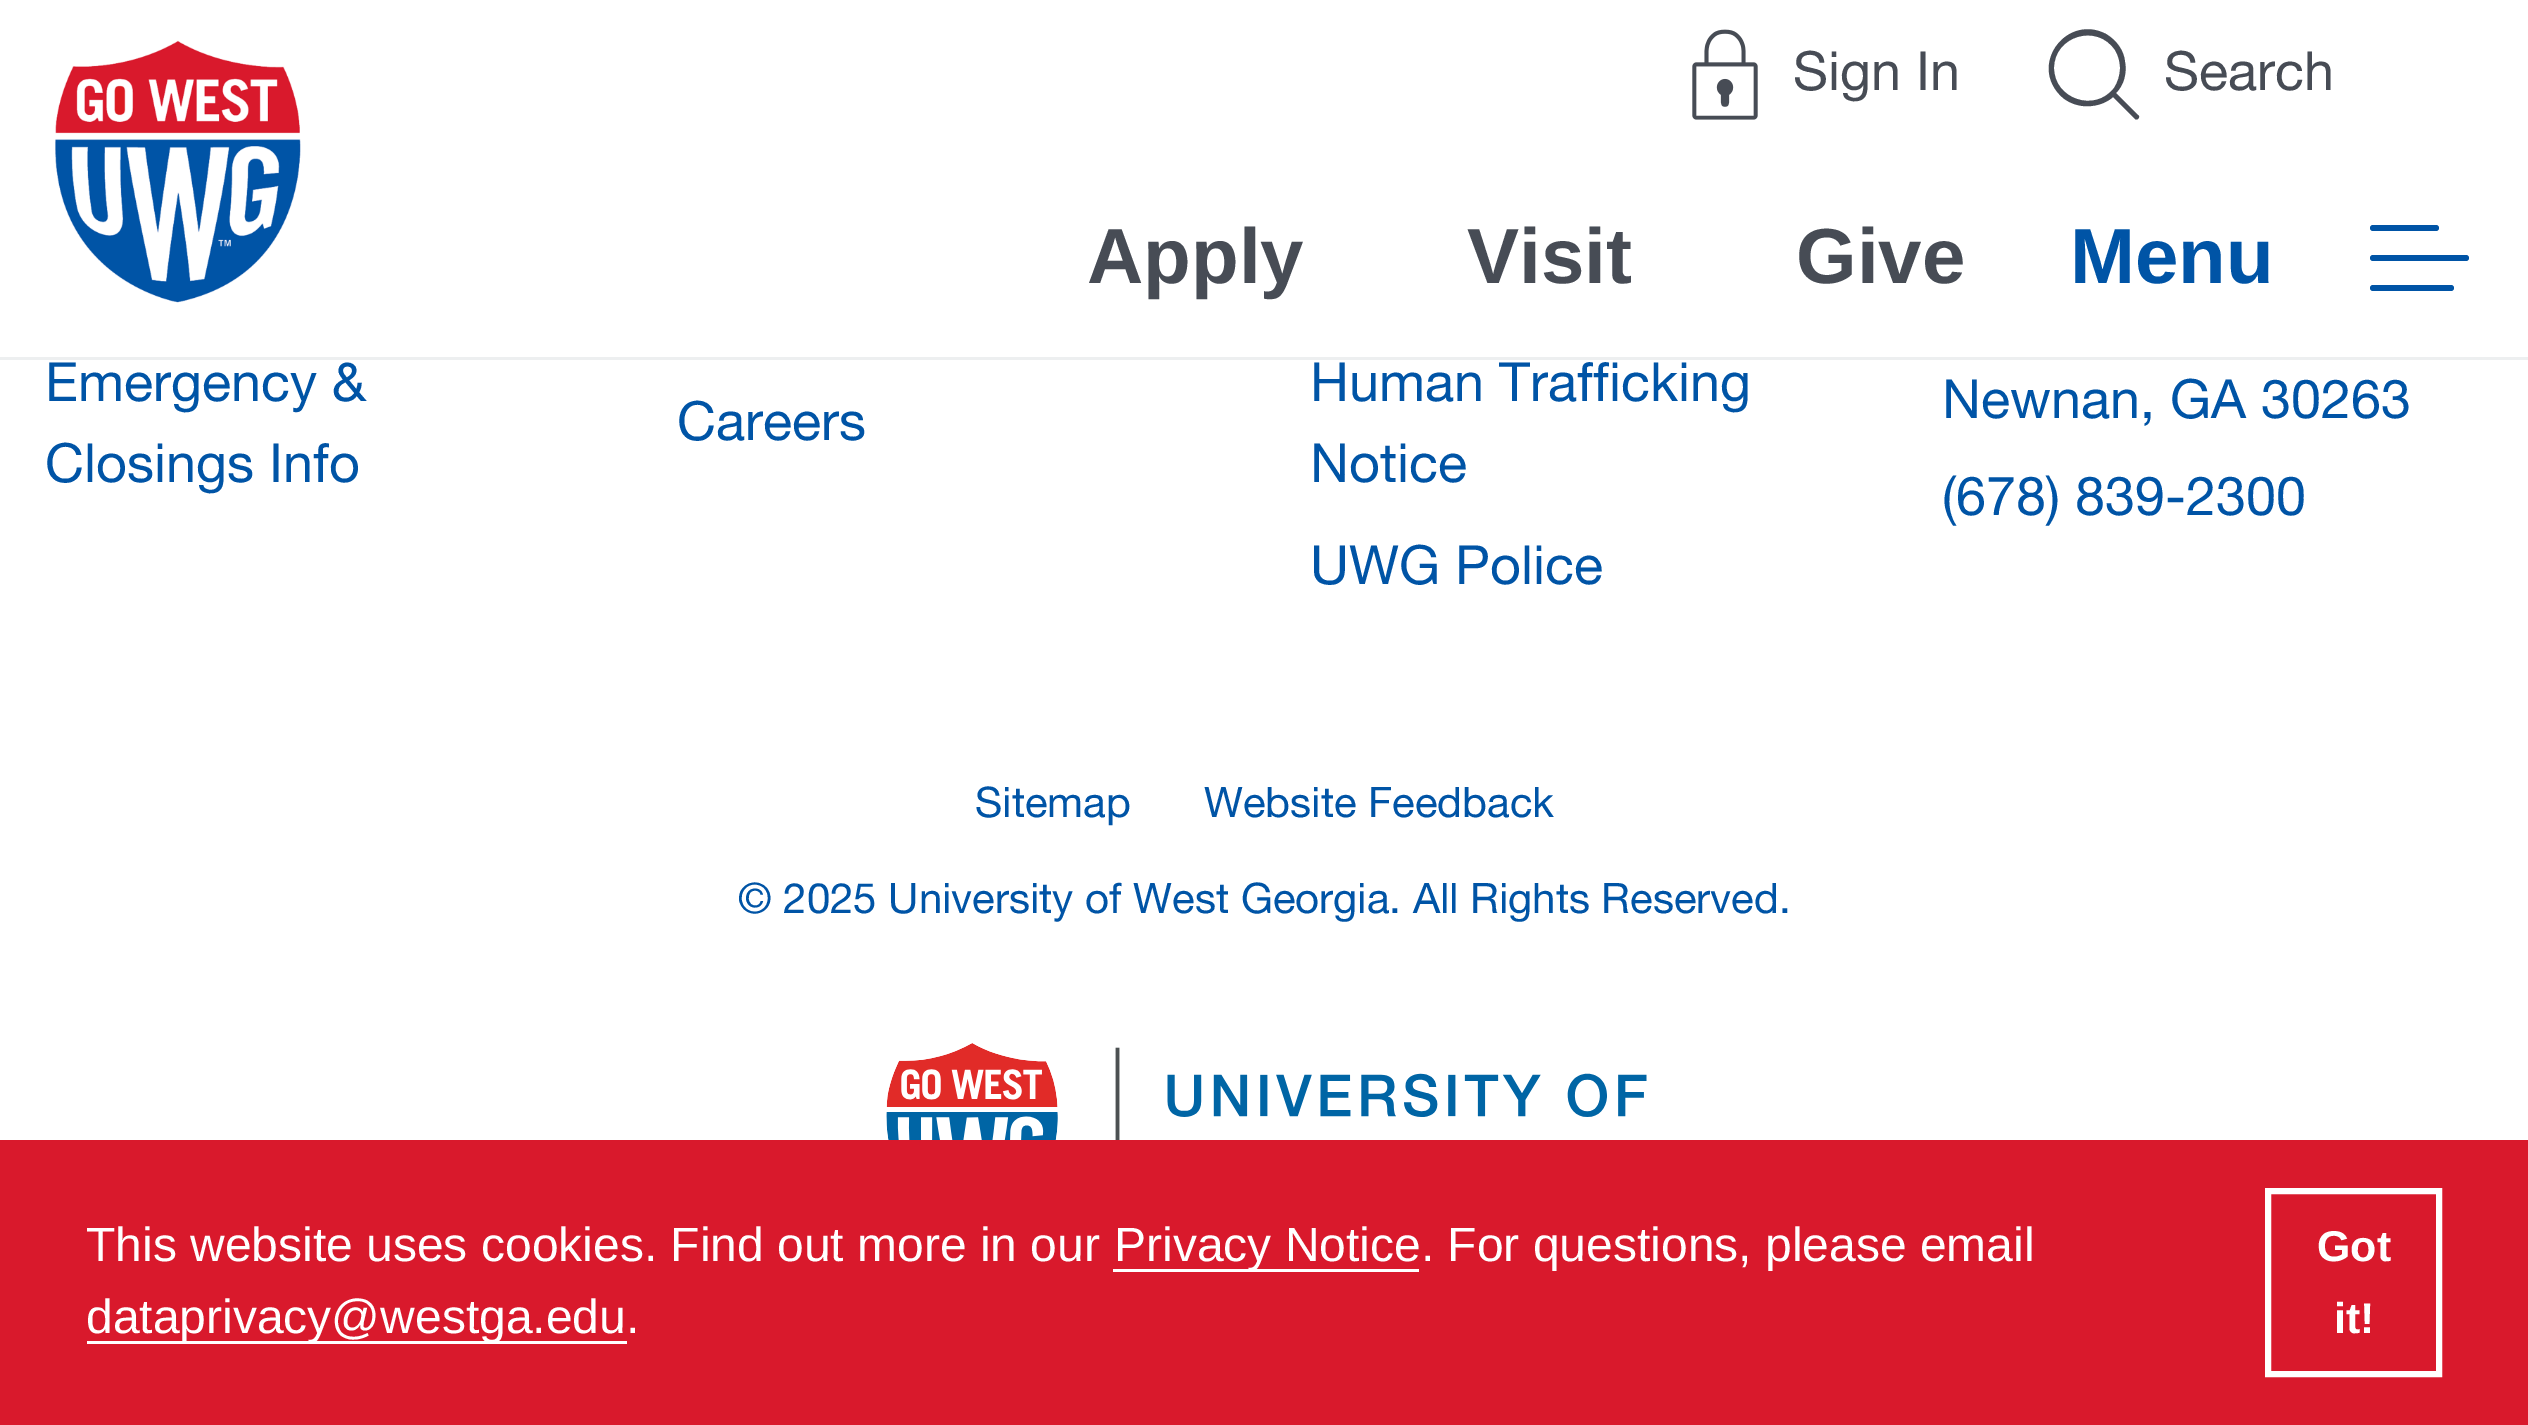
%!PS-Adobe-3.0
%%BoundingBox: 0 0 2528 1425
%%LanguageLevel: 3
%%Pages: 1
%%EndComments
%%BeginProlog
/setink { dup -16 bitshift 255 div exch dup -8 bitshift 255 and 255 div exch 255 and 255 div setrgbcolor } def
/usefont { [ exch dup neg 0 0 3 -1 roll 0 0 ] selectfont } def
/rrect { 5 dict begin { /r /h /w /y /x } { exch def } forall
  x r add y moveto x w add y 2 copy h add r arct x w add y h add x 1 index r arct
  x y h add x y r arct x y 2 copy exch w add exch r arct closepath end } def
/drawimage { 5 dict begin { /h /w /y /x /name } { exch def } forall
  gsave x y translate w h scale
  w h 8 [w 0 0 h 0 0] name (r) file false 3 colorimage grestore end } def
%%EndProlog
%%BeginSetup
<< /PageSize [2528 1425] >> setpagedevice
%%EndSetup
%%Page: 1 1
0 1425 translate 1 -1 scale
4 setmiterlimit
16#FFFFFF setink
0 0 2528 1425 rectfill
16#EDEFF0 setink
0 357 2528 3 rectfill
(img1.raw) 55 40 246 263 drawimage
(img2.raw) 1692 29 66 91 drawimage
/HelveticaNeue-Regular 54 usefont
16#474C55 setink
1793 90 moveto (Sign In) show
2138 115 moveto 2116 93 lineto 2124 85 2127 73 2125 62 curveto 2124 50 2116 40 2106 34 curveto 2068 14 2030 62 2059 94 curveto 2065 101 2074 105 2083 106 curveto 2094 107 2105 104 2113 97 curveto 2135 119 lineto 2137 121 2141 117 2138 115 curveto closepath 2054 68 moveto 2054 36 2097 23 2115 50 curveto 2118 55 2120 61 2120 68 curveto 2120 75 2118 82 2114 88 curveto 2095 113 2054 99 2054 68 curveto closepath fill
2164 90 moveto (Search) show
/LiberationSans-Bold 78 usefont
[
    [(Apply) 1087 283]
    [(Visit) 1467 283]
    [(Give) 1796 283]
] { aload pop moveto show } forall
16#0054A6 setink
2070 283 moveto (Menu) show
2370 225 69 6 3 rrect fill
2370 255 99 6 3 rrect fill
2370 285 84 6 3 rrect fill
/HelveticaNeue-Regular 54 usefont
[
    [(Emergency &) 45 401]
    [(Closings Info) 45 482]
    [(Careers) 677 440]
    [(Human Trafficking) 1310 401]
    [(Notice) 1310 482]
    [(UWG Police) 1310 584]
    [(Newnan, GA 30263) 1942 418]
    [(\(678\) 839-2300) 1942 515]
] { aload pop moveto show } forall
/HelveticaNeue-Regular 42 usefont
[
    [(Sitemap) 975 817]
    [(Website Feedback) 1204 817]
    [(© 2025 University of West Georgia. All Rights Reserved.) 738 913]
] { aload pop moveto show } forall
(img3.raw) 886 1043 761 97 drawimage
16#D9192C setink
0 1140 2528 285 rectfill
/LiberationSans-Regular 48 usefont
16#FFFFFF setink
86 1261 moveto (This website uses cookies. Find out more in our) show
1113 1269 306 3 rectfill
1114 1261 moveto (Privacy Notice. For questions, please email) show
87 1341 540 3 rectfill
86 1333 moveto (dataprivacy@westga.edu.) show
6 setlinewidth
2268 1191 171 183 rectstroke
/LiberationSans-Bold 43 usefont
2317 1261 moveto (Got) show
2334 1333 moveto (it!) show
showpage
%%EOF
